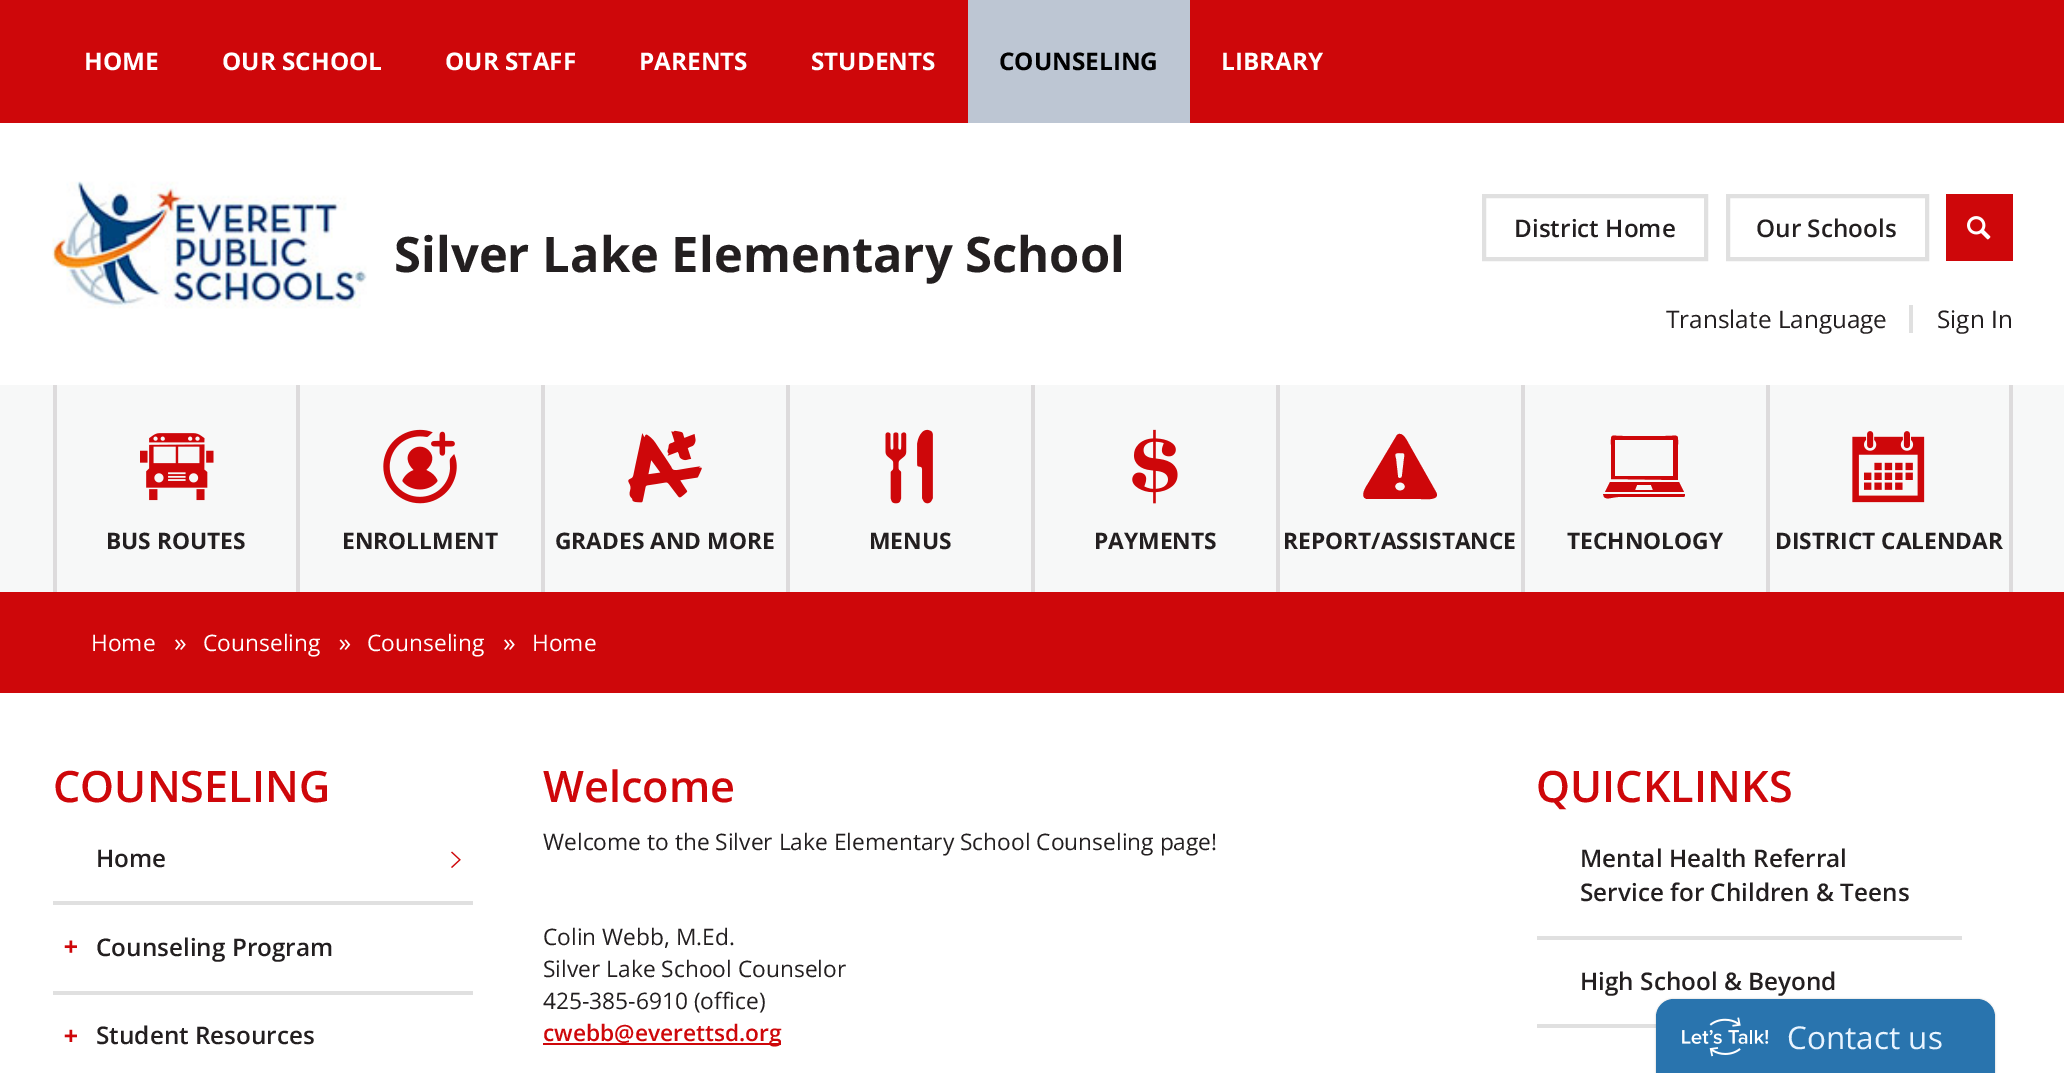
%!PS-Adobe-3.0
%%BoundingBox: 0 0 2064 1073
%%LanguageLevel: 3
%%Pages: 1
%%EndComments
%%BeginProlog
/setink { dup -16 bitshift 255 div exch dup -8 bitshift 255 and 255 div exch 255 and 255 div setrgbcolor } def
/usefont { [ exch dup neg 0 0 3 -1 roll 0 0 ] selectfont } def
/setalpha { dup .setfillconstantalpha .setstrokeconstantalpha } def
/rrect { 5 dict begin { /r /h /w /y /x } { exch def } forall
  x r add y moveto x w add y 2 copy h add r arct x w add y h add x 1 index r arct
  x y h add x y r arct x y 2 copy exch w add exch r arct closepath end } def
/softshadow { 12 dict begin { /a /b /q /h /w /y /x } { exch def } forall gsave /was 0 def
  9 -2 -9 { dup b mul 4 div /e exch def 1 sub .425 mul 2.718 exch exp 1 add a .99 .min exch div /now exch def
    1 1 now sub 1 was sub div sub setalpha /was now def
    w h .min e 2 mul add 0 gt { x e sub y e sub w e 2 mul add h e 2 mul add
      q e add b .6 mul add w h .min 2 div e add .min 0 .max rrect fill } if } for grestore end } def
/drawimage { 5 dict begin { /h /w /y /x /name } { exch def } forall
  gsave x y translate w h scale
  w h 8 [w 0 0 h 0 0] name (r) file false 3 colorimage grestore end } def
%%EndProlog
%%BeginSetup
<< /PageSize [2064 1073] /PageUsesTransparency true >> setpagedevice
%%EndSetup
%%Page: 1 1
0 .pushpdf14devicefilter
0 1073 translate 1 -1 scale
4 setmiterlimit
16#FFFFFF setink
0 0 2064 1073 rectfill
16#CE070A setink
0 0 2064 123 rectfill
/OpenSans-Bold 24.3 usefont
16#FFFFFF setink
[
    [(HOME) 84 70]
    [(OUR SCHOOL) 222 70]
    [(OUR STAFF) 445 70]
    [(PARENTS) 639 70]
    [(STUDENTS) 811 70]
] { aload pop moveto show } forall
16#BDC6D3 setink
968 0 222 123 rectfill
16#000000 setink
999 70 moveto (COUNSELING) show
16#FFFFFF setink
1221 70 moveto (LIBRARY) show
(img1.raw) 52 181 315 128 drawimage
/OpenSans-Bold 48.9 usefont
16#231F20 setink
394 272 moveto (Silver Lake Elementary School) show
16#E0E0E0 setink
4 setlinewidth
1484 196 222 63 rectstroke
/OpenSans-SemiBold 24.3 usefont
16#231F20 setink
1514 237 moveto (District Home) show
16#E0E0E0 setink
1728 196 199 63 rectstroke
16#231F20 setink
1756 237 moveto (Our Schools) show
16#CE070A setink
1946 194 67 67 rectfill
(img2.raw) 1967 216 24 24 drawimage
/OpenSans-Regular 24.3 usefont
16#231F20 setink
1666 328 moveto (Translate Language) show
16#E0E0E0 setink
1909 305 4 28 rectfill
16#231F20 setink
1937 328 moveto (Sign In) show
[
    [0 385 2064 207 16#F7F8F8]
    [296 385 4 207 16#DDDBDC]
    [53 385 4 207 16#DDDBDC]
] { aload pop setink rectfill } forall
(img3.raw) 140 433 74 68 drawimage
/OpenSans-Bold 22.75 usefont
16#231F20 setink
106 549 moveto (BUS ROUTES) show
16#DDDBDC setink
541 385 4 207 rectfill
(img4.raw) 383 429 74 75 drawimage
16#231F20 setink
342 549 moveto (ENROLLMENT) show
16#DDDBDC setink
786 385 4 207 rectfill
(img5.raw) 628 430 74 73 drawimage
16#231F20 setink
555 549 moveto (GRADES AND MORE) show
16#DDDBDC setink
1031 385 4 207 rectfill
(img6.raw) 885 429 48 75 drawimage
16#231F20 setink
869 549 moveto (MENUS) show
16#DDDBDC setink
1276 385 4 207 rectfill
(img7.raw) 1132 429 46 75 drawimage
16#231F20 setink
1094 549 moveto (PAYMENTS) show
16#DDDBDC setink
1521 385 4 207 rectfill
16#CE070A setink
1436 492 moveto 1410 446 lineto 1408 443 1403 430 1397 435 curveto 1369 482 lineto 1368 484 1358 497 1367 499 curveto 1421 499 lineto 1424 499 1441 501 1436 492 curveto closepath 1405 487 moveto 1404 492 1395 492 1395 486 curveto 1396 481 1405 481 1405 487 curveto closepath 1402 476 moveto 1402 478 1399 479 1398 477 curveto 1396 459 lineto 1395 455 1394 453 1399 453 curveto 1405 453 1405 453 1404 459 curveto closepath fill
16#231F20 setink
1283 549 moveto (REPORT/ASSISTANCE) show
16#DDDBDC setink
1766 385 4 207 rectfill
16#CE070A setink
1678 480 moveto 1678 445 lineto 1678 433 1679 436 1665 436 curveto 1623 436 lineto 1610 436 1611 433 1611 445 curveto 1611 479 lineto closepath 1673 476 moveto 1615 476 lineto 1615 440 lineto 1673 440 lineto closepath 1679 482 moveto 1610 482 lineto 1605 492 lineto 1684 492 lineto closepath 1635 490 moveto 1637 485 lineto 1651 485 lineto 1653 490 lineto closepath 1685 494 moveto 1603 494 lineto 1604 497 lineto 1607 500 1613 497 1618 497 curveto 1684 497 lineto 1685 496 lineto closepath fill
16#231F20 setink
1567 549 moveto (TECHNOLOGY) show
16#DDDBDC setink
2009 385 4 207 rectfill
(img8.raw) 1852 431 73 72 drawimage
16#231F20 setink
1775 549 moveto (DISTRICT CALENDAR) show
16#CE070A setink
0 592 2064 101 rectfill
/OpenSans-Regular 22.75 usefont
16#FFFFFF setink
91 651 moveto (Home) show
(img9.raw) 175 639 11 11 drawimage
203 651 moveto (Counseling) show
(img10.raw) 339 639 12 11 drawimage
367 651 moveto (Counseling) show
(img9.raw) 504 639 11 11 drawimage
532 651 moveto (Home) show
/OpenSans-SemiBold 43.25 usefont
16#CE070A setink
53 802 moveto (COUNSELING) show
16#E0E0E0 setink
53 901 420 4 rectfill
/OpenSans-SemiBold 24.3 usefont
16#231F20 setink
96 867 moveto (Home) show
(img11.raw) 451 851 10 17 drawimage
16#E0E0E0 setink
53 991 420 4 rectfill
(img12.raw) 64 940 13 13 drawimage
16#231F20 setink
96 956 moveto (Counseling Program) show
(img13.raw) 64 1029 13 13 drawimage
96 1044 moveto (Student Resources) show
/OpenSans-SemiBold 43.25 usefont
16#CE070A setink
543 802 moveto (Welcome) show
/OpenSans-Regular 22.75 usefont
16#231F20 setink
[
    [(Welcome to the Silver Lake Elementary School Counseling page!) 543 850]
    [(Colin Webb, M.Ed.) 543 945]
    [(Silver Lake School Counselor) 543 977]
    [(425-385-6910 \(office\)) 543 1009]
] { aload pop moveto show } forall
16#CE070A setink
543 1043 238 2 rectfill
/OpenSans-SemiBold 22.75 usefont
543 1041 moveto (cwebb@everettsd.org) show
/OpenSans-SemiBold 43.25 usefont
1536 802 moveto (QUICKLINKS) show
16#E0E0E0 setink
1537 936 425 4 rectfill
/OpenSans-SemiBold 24.3 usefont
16#231F20 setink
1580 867 moveto (Mental Health Referral) show
1580 901 moveto (Service for Children & Teens) show
16#E0E0E0 setink
1537 1024 119 4 rectfill
16#231F20 setink
1580 990 moveto (High School & Beyond) show
16#000000 setink
1656 999 339 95 18 1 0.22 softshadow
16#2974AE setink
1674 999 moveto 1977 999 lineto 1987 999 1995 1007 1995 1017 curveto 1995 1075 lineto 1656 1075 lineto 1656 1017 lineto 1656 1007 1664 999 1674 999 curveto closepath fill
(img14.raw) 1682 1017 87 40 drawimage
/OpenSans-Regular 31.5 usefont
16#E9F4FF setink
1787 1049 moveto (Contact us) show
.poppdf14devicefilter showpage
%%EOF
